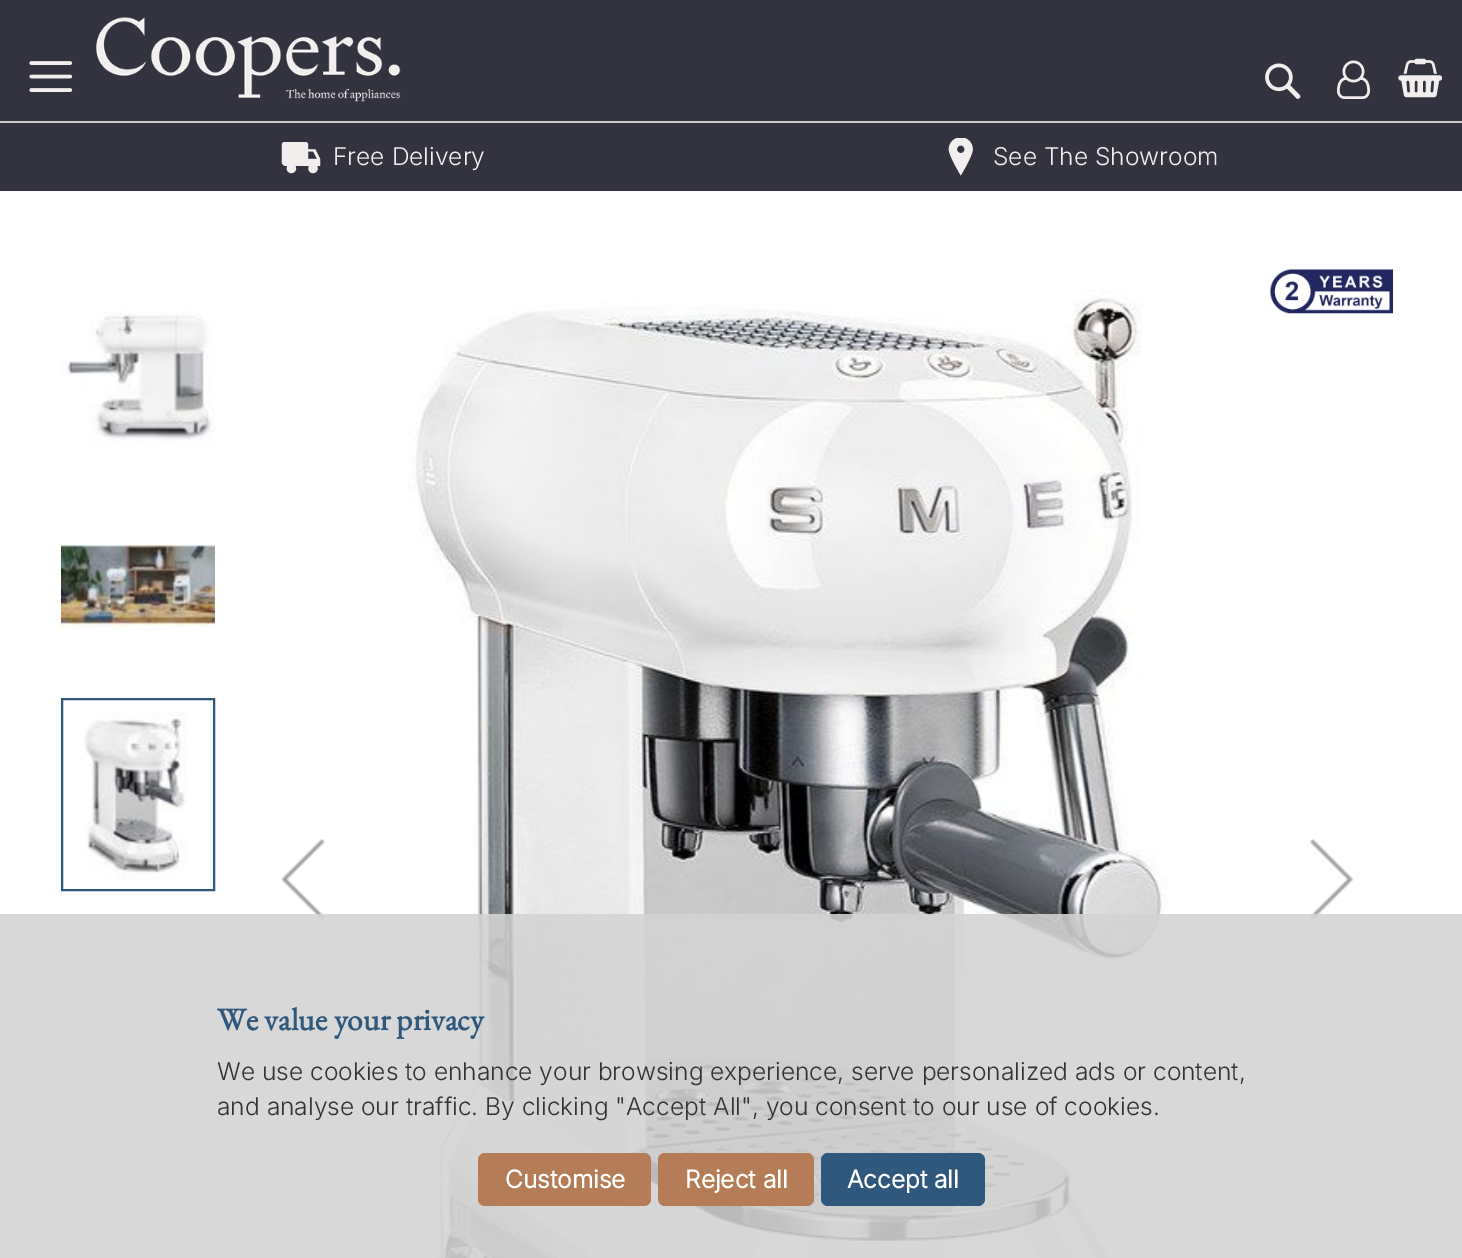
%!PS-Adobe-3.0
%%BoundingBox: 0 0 1462 1258
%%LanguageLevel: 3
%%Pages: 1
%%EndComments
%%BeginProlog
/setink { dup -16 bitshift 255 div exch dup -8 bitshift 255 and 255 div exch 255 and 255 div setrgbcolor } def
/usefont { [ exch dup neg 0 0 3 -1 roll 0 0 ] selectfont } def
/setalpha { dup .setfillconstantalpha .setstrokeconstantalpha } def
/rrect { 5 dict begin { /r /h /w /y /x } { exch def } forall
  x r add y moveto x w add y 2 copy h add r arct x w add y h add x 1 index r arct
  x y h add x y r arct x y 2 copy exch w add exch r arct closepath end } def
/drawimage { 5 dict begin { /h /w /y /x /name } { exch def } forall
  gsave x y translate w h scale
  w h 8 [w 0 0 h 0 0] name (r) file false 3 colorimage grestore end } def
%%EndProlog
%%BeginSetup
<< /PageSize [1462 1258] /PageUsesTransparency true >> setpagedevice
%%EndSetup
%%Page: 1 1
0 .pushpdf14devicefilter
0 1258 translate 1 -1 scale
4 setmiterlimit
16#FFFFFF setink
0 0 1462 1258 rectfill
16#333340 setink
0 0 1462 121 rectfill
(img1.raw) 29 61 44 31 drawimage
(img2.raw) 96 17 305 85 drawimage
(img3.raw) 1337 60 33 39 drawimage
(img4.raw) 1398 58 44 40 drawimage
(img5.raw) 1265 63 36 36 drawimage
16#CCCCCC setink
0 121 1462 2 rectfill
16#333340 setink
0 123 1462 68 rectfill
(img6.raw) 281 142 40 32 drawimage
/Inter-Light 24.5 usefont
16#F2EEED setink
333 165 moveto (Free Delivery) show
(img7.raw) 948 138 25 38 drawimage
993 165 moveto (See The Showroom) show
(img8.raw) 1270 269 123 45 drawimage
(img9.raw) 61 310 154 136 drawimage
(img10.raw) 61 543 154 87 drawimage
(img11.raw) 84 712 103 168 drawimage
16#30587D setink
2 setlinewidth
62 699 152 191 rectstroke
(img12.raw) 281 839 44 81 drawimage
(img13.raw) 408 289 760 969 drawimage
(img14.raw) 1309 839 45 81 drawimage
0.88 setalpha
16#D3D3D3 setink
0 914 1462 344 rectfill
/EBGaramond-Bold 31.5 usefont
1 setalpha
16#30587D setink
217 1030 moveto (We value your privacy) show
/Inter-Light 24.5 usefont
16#333333 setink
217 1080 moveto (We use cookies to enhance your browsing experience, serve personalized ads or content,) show
217 1115 moveto (and analyse our traffic. By clicking "Accept All", you consent to our use of cookies.) show
16#B57D57 setink
478 1153 173 53 7 rrect fill
/Inter-Bold 24.5 usefont
16#FFFFFF setink
505 1188 moveto (Customise) show
16#B57D57 setink
658 1153 156 53 7 rrect fill
16#FFFFFF setink
685 1188 moveto (Reject all) show
16#30587D setink
821 1153 164 53 7 rrect fill
16#FFFFFF setink
847 1188 moveto (Accept all) show
.poppdf14devicefilter showpage
%%EOF
